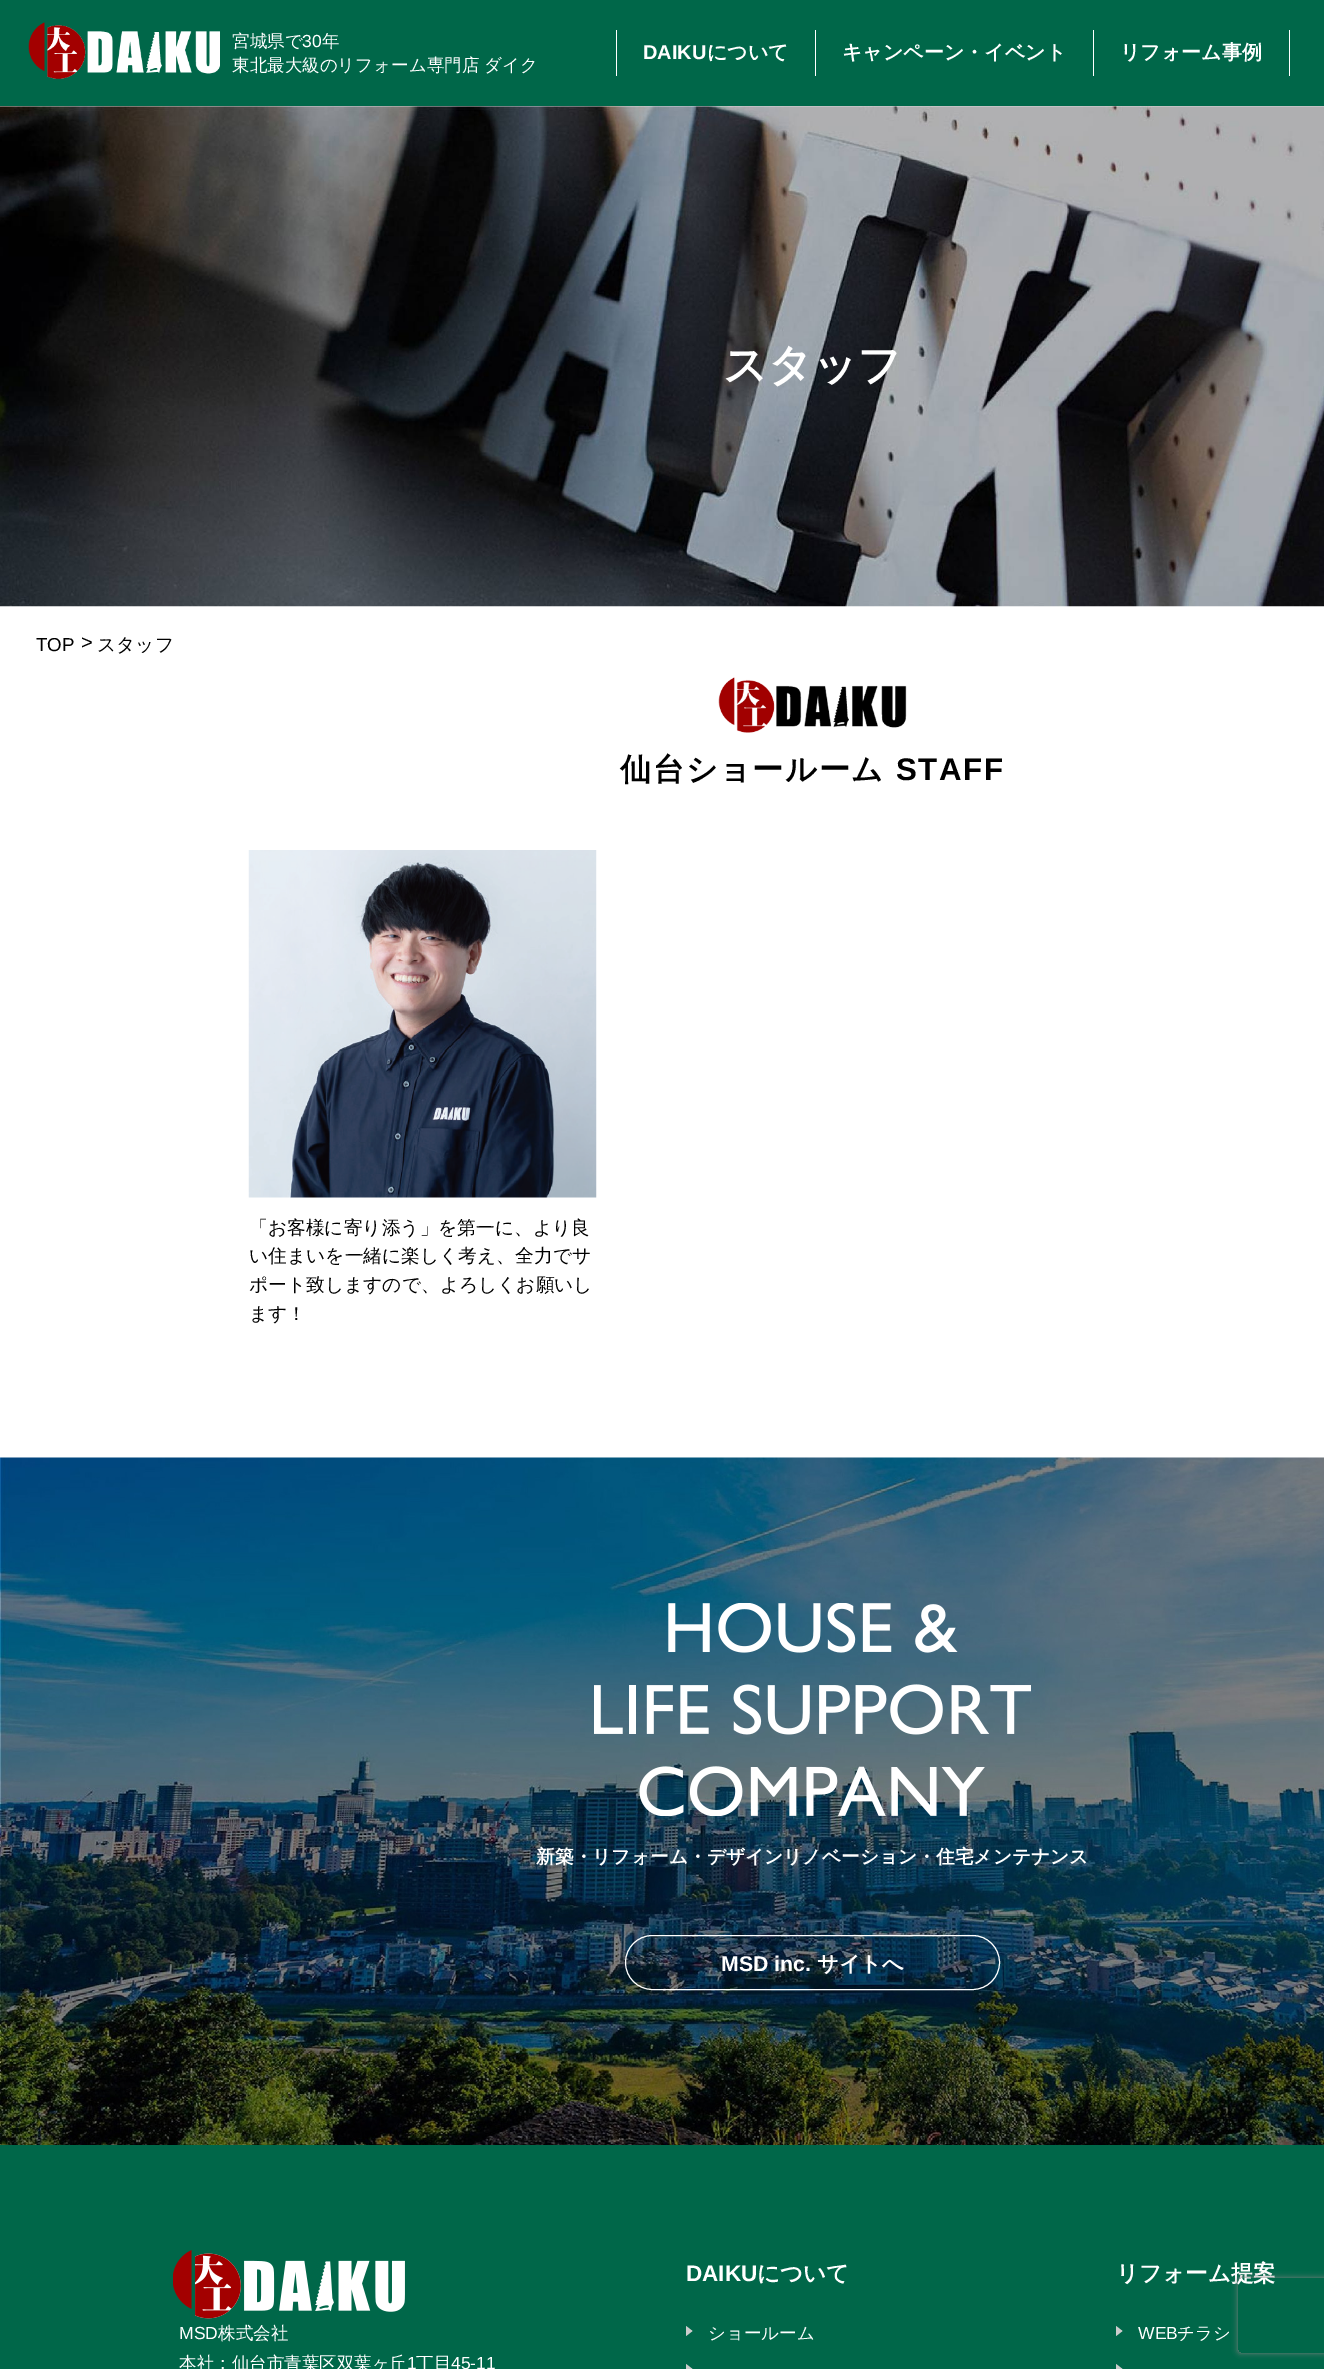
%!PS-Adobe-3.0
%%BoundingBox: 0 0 1324 2369
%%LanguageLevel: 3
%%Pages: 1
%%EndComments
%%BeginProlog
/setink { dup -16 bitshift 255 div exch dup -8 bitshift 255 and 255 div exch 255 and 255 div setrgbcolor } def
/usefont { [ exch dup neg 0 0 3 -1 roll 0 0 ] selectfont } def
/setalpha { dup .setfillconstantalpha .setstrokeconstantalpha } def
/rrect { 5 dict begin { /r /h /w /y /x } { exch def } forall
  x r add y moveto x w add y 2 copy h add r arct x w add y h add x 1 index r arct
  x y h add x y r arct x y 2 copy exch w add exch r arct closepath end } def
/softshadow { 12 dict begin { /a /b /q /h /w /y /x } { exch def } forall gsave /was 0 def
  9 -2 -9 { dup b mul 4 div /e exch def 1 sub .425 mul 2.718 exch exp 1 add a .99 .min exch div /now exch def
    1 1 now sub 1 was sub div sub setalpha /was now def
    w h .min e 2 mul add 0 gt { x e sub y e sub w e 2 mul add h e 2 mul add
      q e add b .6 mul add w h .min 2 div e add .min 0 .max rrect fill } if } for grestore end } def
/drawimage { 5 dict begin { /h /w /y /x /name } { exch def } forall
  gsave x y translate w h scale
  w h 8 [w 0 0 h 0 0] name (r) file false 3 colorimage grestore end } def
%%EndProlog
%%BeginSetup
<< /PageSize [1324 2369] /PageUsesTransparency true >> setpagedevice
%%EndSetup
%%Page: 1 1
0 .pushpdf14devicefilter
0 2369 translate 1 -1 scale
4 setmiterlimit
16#FFFFFF setink
0 0 1324 2369 rectfill
16#006749 setink
0 0 1324 106 rectfill
(img1.raw) 28 22 192 57 drawimage
/WenQuanYiZenHei-Medium 17.5 usefont
16#FFFFFF setink
232 47 moveto (宮城県で) show
/LiberationSans-Regular 17.5 usefont
302 47 moveto (30) show
/WenQuanYiZenHei-Medium 17.5 usefont
322 47 moveto (年) show
232 71 moveto (東北最大級のリフォーム専門店 ダイク) show
616 30 1 46 rectfill
/LiberationSans-Bold 20 usefont
643 59 moveto (DAIKU) show
/WenQuanYiZenHei-Bold 20 usefont
707 59 moveto (について) show
815 30 1 46 rectfill
842 59 moveto (キャンペーン・イベント) show
1093 30 1 46 rectfill
1120 59 moveto (リフォーム事例) show
1289 30 1 46 rectfill
(img2.raw) 0 106 1324 501 drawimage
/WenQuanYiZenHei-Bold 43.75 usefont
723 380 moveto (スタッフ) show
/LiberationSans-Regular 18.75 usefont
16#000000 setink
36 651 moveto (TOP) show
/LiberationSans-Regular 20 usefont
81 649 moveto (>) show
/WenQuanYiZenHei-Medium 18.75 usefont
97 651 moveto (スタッフ) show
(img3.raw) 718 677 189 56 drawimage
/WenQuanYiZenHei-Bold 31.25 usefont
620 780 moveto 1.5 0 (仙台ショールーム) ashow
/LiberationSans-Bold 31.25 usefont
896 780 moveto 1.5 0 (STAFF) ashow
(img4.raw) 248 850 349 348 drawimage
/WenQuanYiZenHei-Medium 18.75 usefont
[
    [(「お客様に寄り添う」を第一に、より良) 249 1234]
    [(い住まいを一緒に楽しく考え、全力でサ) 249 1262]
    [(ポート致しますので、よろしくお願いし) 249 1291]
    [(ます！) 249 1320]
] { aload pop moveto show } forall
(img5.raw) 0 1457 1324 688 drawimage
(img6.raw) 594 1603 437 213 drawimage
/WenQuanYiZenHei-Bold 18.75 usefont
16#FFFFFF setink
536 1863 moveto (新築・リフォーム・デザインリノベーション・住宅メンテナンス) show
625.5 1935.5 374 54 27 rrect stroke
/LiberationSans-Bold 21.25 usefont
721 1971 moveto (MSD inc.) show
/WenQuanYiZenHei-Bold 21.25 usefont
817 1971 moveto (サイトへ) show
16#006749 setink
0 2145 1324 224 rectfill
/LiberationSans-Bold 22.5 usefont
16#FFFFFF setink
686 2281 moveto (DAIKU) show
/WenQuanYiZenHei-Bold 22.5 usefont
757 2281 moveto (について) show
16#CCCCCC setink
686 2336 moveto 686 2326 lineto 692.5 2331 lineto closepath 686 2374 moveto 686 2364 lineto 692.5 2369 lineto closepath fill
/WenQuanYiZenHei-Medium 17.5 usefont
16#FFFFFF setink
708 2339 moveto (ショールーム) show
/WenQuanYiZenHei-Bold 22.5 usefont
1116 2281 moveto (リフォーム提案) show
16#CCCCCC setink
1116 2336 moveto 1116 2326 lineto 1122.5 2331 lineto closepath 1116 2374 moveto 1116 2364 lineto 1122.5 2369 lineto closepath fill
/LiberationSans-Regular 17.5 usefont
16#FFFFFF setink
1138 2339 moveto (WEB) show
/WenQuanYiZenHei-Medium 17.5 usefont
1177 2339 moveto (チラシ) show
(img7.raw) 173 2250 232 69 drawimage
/LiberationSans-Regular 17.5 usefont
179 2339 moveto (MSD) show
/WenQuanYiZenHei-Medium 17.5 usefont
218 2339 moveto (株式会社) show
179 2369 moveto (本社：仙台市青葉区双葉ヶ丘) show
/LiberationSans-Regular 17.5 usefont
407 2369 moveto (1) show
/WenQuanYiZenHei-Medium 17.5 usefont
416 2369 moveto (丁目) show
/LiberationSans-Regular 17.5 usefont
451 2369 moveto (45-11) show
gsave
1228 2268 moveto 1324 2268 lineto 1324 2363 lineto 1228 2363 lineto closepath 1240.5 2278 moveto 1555.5 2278 lineto 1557 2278 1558 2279 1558 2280.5 curveto 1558 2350.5 lineto 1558 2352 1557 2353 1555.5 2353 curveto 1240.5 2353 lineto 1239 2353 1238 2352 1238 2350.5 curveto 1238 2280.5 lineto 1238 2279 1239 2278 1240.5 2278 curveto closepath eoclip newpath
16#808080 setink
1238 2278 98 75 2.5 3 1 softshadow
grestore
.poppdf14devicefilter showpage
%%EOF
